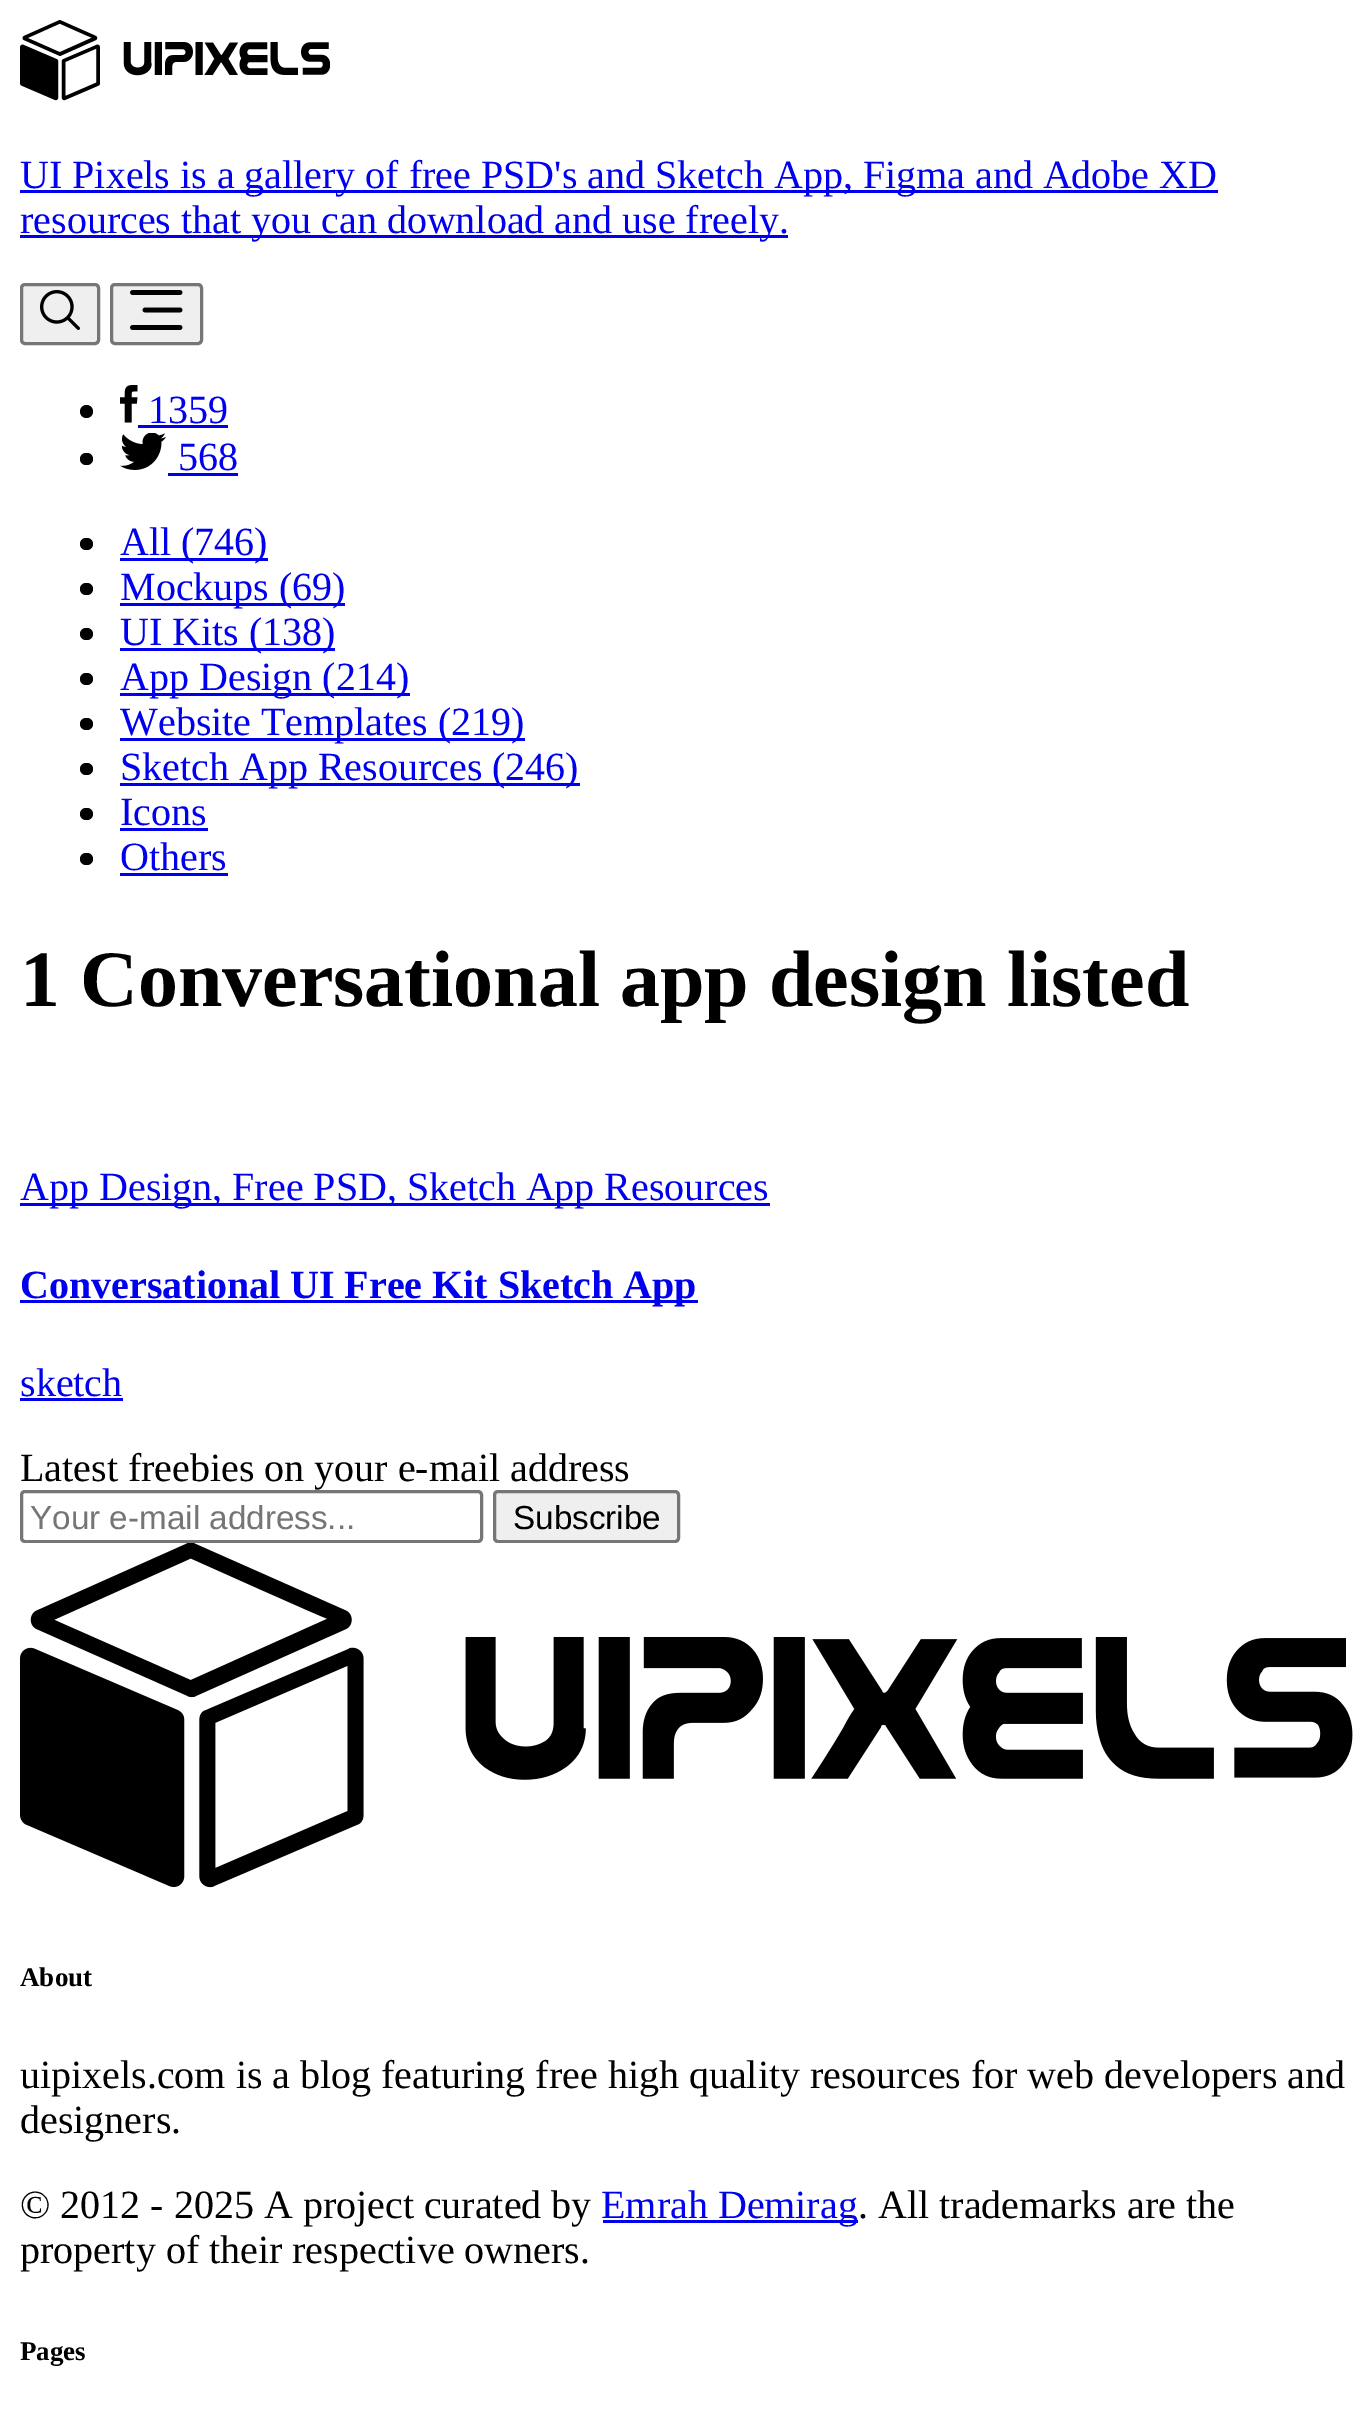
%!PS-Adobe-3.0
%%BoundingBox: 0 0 1372 2413
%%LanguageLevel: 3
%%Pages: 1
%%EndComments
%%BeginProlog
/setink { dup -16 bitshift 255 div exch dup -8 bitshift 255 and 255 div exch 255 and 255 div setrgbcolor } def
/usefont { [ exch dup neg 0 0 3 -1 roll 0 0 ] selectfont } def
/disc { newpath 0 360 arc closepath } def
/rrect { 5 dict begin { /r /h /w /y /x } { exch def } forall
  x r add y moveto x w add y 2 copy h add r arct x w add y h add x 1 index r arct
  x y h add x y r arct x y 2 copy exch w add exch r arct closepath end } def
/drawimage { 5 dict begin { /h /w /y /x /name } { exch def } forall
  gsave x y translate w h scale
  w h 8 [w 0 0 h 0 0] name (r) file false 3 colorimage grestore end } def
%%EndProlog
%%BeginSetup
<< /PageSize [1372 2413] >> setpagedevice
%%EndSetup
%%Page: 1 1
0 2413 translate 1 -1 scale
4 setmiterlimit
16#FFFFFF setink
0 0 1372 2413 rectfill
(img1.raw) 20 20 310 81 drawimage
16#0000EE setink
20 190 1198 3 rectfill
/LiberationSerif-Regular 40 usefont
20 188 moveto (UI Pixels is a gallery of free PSD's and Sketch App, Figma and Adobe XD) show
20 235 768 3 rectfill
20 233 moveto (resources that you can download and use freely.) show
16#EFEFEF setink
21.5 284.5 77 59 3.5 rrect gsave fill grestore
16#767676 setink
3 setlinewidth
stroke
(img2.raw) 40 290 40 40 drawimage
16#EFEFEF setink
111.5 284.5 90 59 3.5 rrect gsave fill grestore
16#767676 setink
stroke
(img3.raw) 130 290 53 40 drawimage
16#000000 setink
86.5 411.5 6.5 disc fill
(img4.raw) 120 385 18 38 drawimage
16#0000EE setink
148 423 moveto (1359) show
138 425 90 3 rectfill
16#000000 setink
80 453 13 12 6 rrect fill
(img5.raw) 120 433 46 37 drawimage
16#0000EE setink
178 470 moveto (568) show
168 473 70 3 rectfill
16#000000 setink
80 538 13 12 6 rrect fill
16#0000EE setink
120 558 148 3 rectfill
120 555 moveto (All \(746\)) show
16#000000 setink
80 583 13 12 6 rrect fill
16#0000EE setink
120 603 225 3 rectfill
120 600 moveto (Mockups \(69\)) show
16#000000 setink
80 628 13 12 6 rrect fill
16#0000EE setink
120 648 215 3 rectfill
120 645 moveto (UI Kits \(138\)) show
16#000000 setink
80 673 13 12 6 rrect fill
16#0000EE setink
120 693 290 3 rectfill
120 690 moveto (App Design \(214\)) show
16#000000 setink
80 718 13 12 6 rrect fill
16#0000EE setink
120 738 405 3 rectfill
120 735 moveto (Website Templates \(219\)) show
16#000000 setink
80 763 13 12 6 rrect fill
16#0000EE setink
120 783 460 3 rectfill
120 780 moveto (Sketch App Resources \(246\)) show
16#000000 setink
80 808 13 12 6 rrect fill
16#0000EE setink
120 825 moveto (Icons) show
120 828 88 3 rectfill
16#000000 setink
80 853 13 12 6 rrect fill
16#0000EE setink
120 870 moveto (Others) show
120 873 108 3 rectfill
/LiberationSerif-Bold 80 usefont
16#000000 setink
20 1006 moveto (1 Conversational app design listed) show
16#0000EE setink
20 1203 750 3 rectfill
/LiberationSerif-Regular 40 usefont
20 1200 moveto (App Design, Free PSD, Sketch App Resources) show
20 1300 678 3 rectfill
/LiberationSerif-Bold 40 usefont
20 1298 moveto (Conversational UI Free Kit Sketch App) show
/LiberationSerif-Regular 40 usefont
20 1396 moveto (sketch) show
20 1398 103 3 rectfill
16#000000 setink
20 1481 moveto (Latest freebies on your e-mail address) show
16#767676 setink
21.5 1491.5 460 50 3.5 rrect stroke
/LiberationSans-Regular 33.25 usefont
16#757575 setink
30 1529 moveto (Your e-mail address...) show
16#EFEFEF setink
494.5 1491.5 184 50 3.5 rrect gsave fill grestore
16#767676 setink
stroke
16#000000 setink
513 1529 moveto (Subscribe) show
(img6.raw) 20 1543 1333 345 drawimage
/LiberationSerif-Bold 27 usefont
20 1986 moveto (About) show
/LiberationSerif-Regular 40 usefont
[
    [(uipixels.com is a blog featuring free high quality resources for web developers and) 20 2088]
    [(designers.) 20 2133]
    [(© 2012 - 2025 A project curated by) 20 2218]
] { aload pop moveto show } forall
16#0000EE setink
603 2220 255 3 rectfill
601 2218 moveto (Emrah Demirag) show
16#000000 setink
858 2218 moveto (. All trademarks are the) show
20 2263 moveto (property of their respective owners.) show
/LiberationSerif-Bold 27 usefont
20 2360 moveto (Pages) show
showpage
%%EOF
